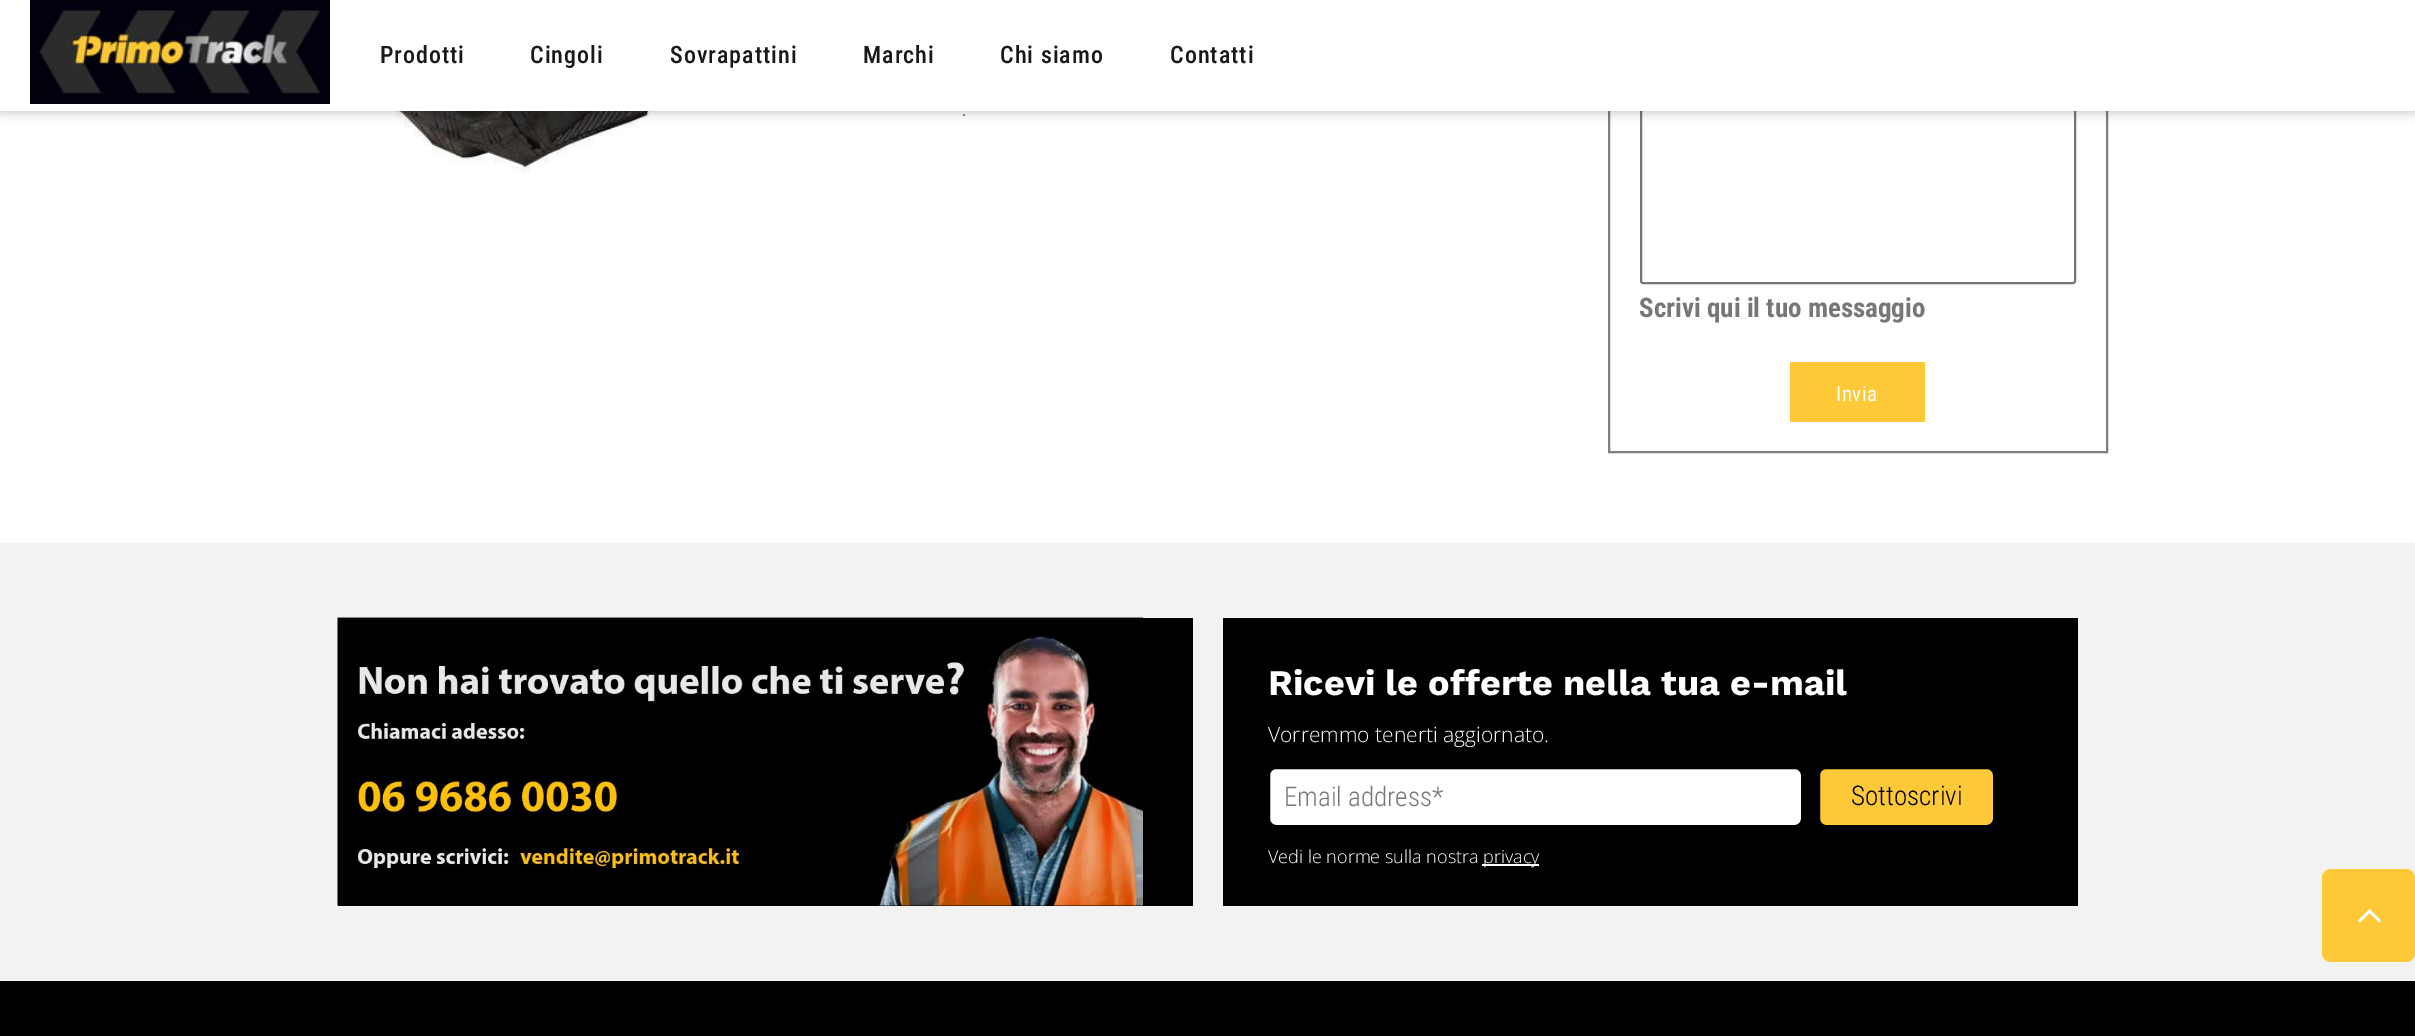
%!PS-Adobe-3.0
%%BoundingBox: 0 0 2415 1036
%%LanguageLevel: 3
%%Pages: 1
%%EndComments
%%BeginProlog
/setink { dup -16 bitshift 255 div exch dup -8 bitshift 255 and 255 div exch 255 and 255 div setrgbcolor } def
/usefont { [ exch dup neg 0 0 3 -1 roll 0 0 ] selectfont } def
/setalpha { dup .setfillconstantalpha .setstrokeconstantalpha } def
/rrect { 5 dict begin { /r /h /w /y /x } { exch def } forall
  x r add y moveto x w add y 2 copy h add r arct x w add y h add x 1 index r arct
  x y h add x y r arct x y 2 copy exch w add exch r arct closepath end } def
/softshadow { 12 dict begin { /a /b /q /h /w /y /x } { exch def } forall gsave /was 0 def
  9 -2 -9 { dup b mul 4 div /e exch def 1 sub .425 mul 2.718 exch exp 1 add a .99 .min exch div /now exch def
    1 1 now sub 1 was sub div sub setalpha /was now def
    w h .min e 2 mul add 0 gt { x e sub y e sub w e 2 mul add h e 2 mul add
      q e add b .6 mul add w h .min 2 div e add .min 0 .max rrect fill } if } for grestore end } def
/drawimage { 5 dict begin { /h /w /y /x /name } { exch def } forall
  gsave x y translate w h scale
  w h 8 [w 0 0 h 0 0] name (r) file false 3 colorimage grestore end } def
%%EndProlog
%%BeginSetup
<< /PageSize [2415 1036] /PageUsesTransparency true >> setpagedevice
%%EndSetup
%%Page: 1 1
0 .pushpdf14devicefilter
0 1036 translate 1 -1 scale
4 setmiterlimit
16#FFFFFF setink
0 0 2415 1036 rectfill
(img2.raw) 322 111 552 62 drawimage
16#808080 setink
2 setlinewidth
1609 -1 498 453 rectstroke
16#767676 setink
1641 45 434 238 2 rrect stroke
16#000000 setink
0 0 2415 111 0 6 0.3 softshadow
16#FFFFFF setink
0 0 2415 111 rectfill
(img1.raw) 30 0 300 104 drawimage
/RobotoCondensed-Medium 24 usefont
16#191919 setink
380 63 moveto 1 0 (Prodotti) ashow
530 63 moveto 1 0 (Cingoli) ashow
670 63 moveto 1 0 (Sovrapattini) ashow
863 63 moveto 1 0 (Marchi) ashow
1000 63 moveto 1 0 (Chi siamo) ashow
1170 63 moveto 1 0 (Contatti) ashow
/RobotoCondensed-Light 27 usefont
16#777777 setink
961 116 moveto (.) show
/RobotoCondensed-Bold 27 usefont
1639 317 moveto (Scrivi qui il tuo messaggio) show
16#FDC938 setink
1790 362 135 60 rectfill
/RobotoCondensed-Regular 21 usefont
16#FFFFFF setink
1836 401 moveto 0.5 0 (Invia) ashow
16#F2F2F2 setink
0 543 2415 438 rectfill
16#000000 setink
338 618 855 288 rectfill
(img3.raw) 337 617 806 289 drawimage
1223 618 855 288 rectfill
/WorkSans-Bold 36 usefont
16#FFFFFF setink
1268 695 moveto (Ricevi le offerte nella tua e-mail) show
/OpenSans-Light 21 usefont
1268 742 moveto (Vorremmo tenerti aggiornato.) show
1269 768 533 58 7 rrect gsave fill grestore
16#000000 setink
stroke
/RobotoCondensed-Light 27 usefont
16#777777 setink
1284 806 moveto (Email address*) show
16#FDC938 setink
1819 768 175 58 7 rrect gsave fill grestore
16#000000 setink
stroke
1851 805 moveto (Sottoscrivi) show
/OpenSans-Light 18 usefont
16#FFFFFF setink
1268 863 moveto (Vedi le norme sulla nostra) show
1482 864 57 2 rectfill
1483 863 moveto (privacy) show
16#000000 setink
0 981 2415 55 rectfill
16#FDC938 setink
2322 869 93 93 9 rrect fill
16#FFFFFF setink
2379 922.5 moveto 2369.5 913 lineto 2360 922.5 lineto 2358 920.5 lineto 2369.5 909 lineto 2381 920.5 lineto closepath fill
.poppdf14devicefilter showpage
%%EOF
